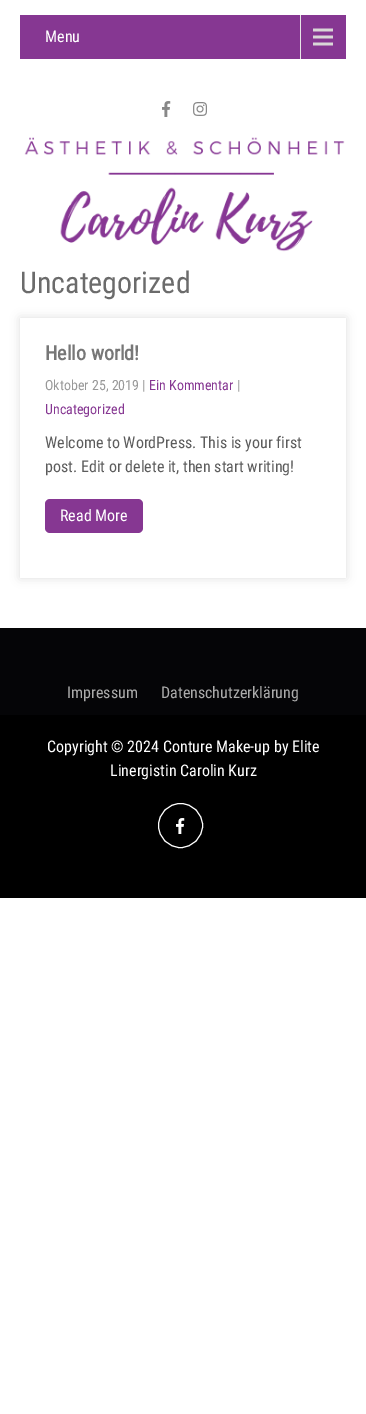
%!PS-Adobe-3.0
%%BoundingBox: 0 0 366 1414
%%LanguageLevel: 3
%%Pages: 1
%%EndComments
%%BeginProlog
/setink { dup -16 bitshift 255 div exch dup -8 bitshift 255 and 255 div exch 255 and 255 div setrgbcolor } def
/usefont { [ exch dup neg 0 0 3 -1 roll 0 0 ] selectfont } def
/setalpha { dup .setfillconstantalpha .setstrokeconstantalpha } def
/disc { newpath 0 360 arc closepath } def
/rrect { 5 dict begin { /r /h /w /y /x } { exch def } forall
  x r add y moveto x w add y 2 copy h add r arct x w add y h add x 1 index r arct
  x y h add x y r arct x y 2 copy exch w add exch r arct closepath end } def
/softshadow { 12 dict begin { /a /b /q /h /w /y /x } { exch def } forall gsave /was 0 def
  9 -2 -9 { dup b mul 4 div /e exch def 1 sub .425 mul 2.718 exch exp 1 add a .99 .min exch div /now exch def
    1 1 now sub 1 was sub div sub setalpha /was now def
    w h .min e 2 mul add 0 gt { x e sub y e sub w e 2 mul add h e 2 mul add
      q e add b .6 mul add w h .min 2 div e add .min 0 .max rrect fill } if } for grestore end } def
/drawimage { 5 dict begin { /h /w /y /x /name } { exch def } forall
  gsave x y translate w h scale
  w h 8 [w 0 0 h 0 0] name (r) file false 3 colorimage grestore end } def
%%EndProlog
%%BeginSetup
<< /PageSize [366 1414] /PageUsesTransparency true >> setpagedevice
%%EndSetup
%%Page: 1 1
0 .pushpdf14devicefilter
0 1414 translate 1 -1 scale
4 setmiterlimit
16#FFFFFF setink
0 0 366 1414 rectfill
16#863792 setink
20 15 326 44 rectfill
(img1.raw) 300 15 33 44 drawimage
/RobotoCondensed-Regular 16 usefont
16#FFFFFF setink
45 42 moveto (Menu) show
(img2.raw) 162 101 9 16 drawimage
(img3.raw) 193 102 14 14 drawimage
(img4.raw) 24 137 321 115 drawimage
/RobotoCondensed-Regular 30 usefont
16#6B6B6B setink
20 293 moveto (Uncategorized) show
gsave
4 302 moveto 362 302 lineto 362 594 lineto 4 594 lineto closepath 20 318 moveto 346 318 lineto 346 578 lineto 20 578 lineto closepath eoclip newpath
16#DDDDDD setink
20 318 326 260 0 5 1 softshadow
grestore
/RobotoCondensed-Bold 20 usefont
16#777777 setink
45 360 moveto (Hello world!) show
/RobotoCondensed-Regular 14 usefont
16#999999 setink
45 390 moveto (Oktober 25, 2019 |) show
16#863792 setink
149 390 moveto (Ein Kommentar) show
16#999999 setink
237 390 moveto (|) show
16#863792 setink
45 414 moveto (Uncategorized) show
/RobotoCondensed-Regular 16 usefont
16#5C5C5C setink
45 448 moveto (Welcome to WordPress. This is your first) show
45 472 moveto (post. Edit or delete it, then start writing!) show
16#863792 setink
45 499 98 34 5 rrect fill
16#FFFFFF setink
60 521 moveto (Read More) show
16#050507 setink
0 628 366 87 rectfill
16#ABABAB setink
67 698 moveto (Impressum) show
161 698 moveto (Datenschutzerklärung) show
16#000000 setink
0 715 366 183 rectfill
16#FFFFFF setink
47 752 moveto (Copyright © 2024 Conture Make-up by Elite) show
110 776 moveto (Linergistin Carolin Kurz) show
180.5 825.5 22 disc stroke
(img5.raw) 176 818 9 16 drawimage
.poppdf14devicefilter showpage
%%EOF
